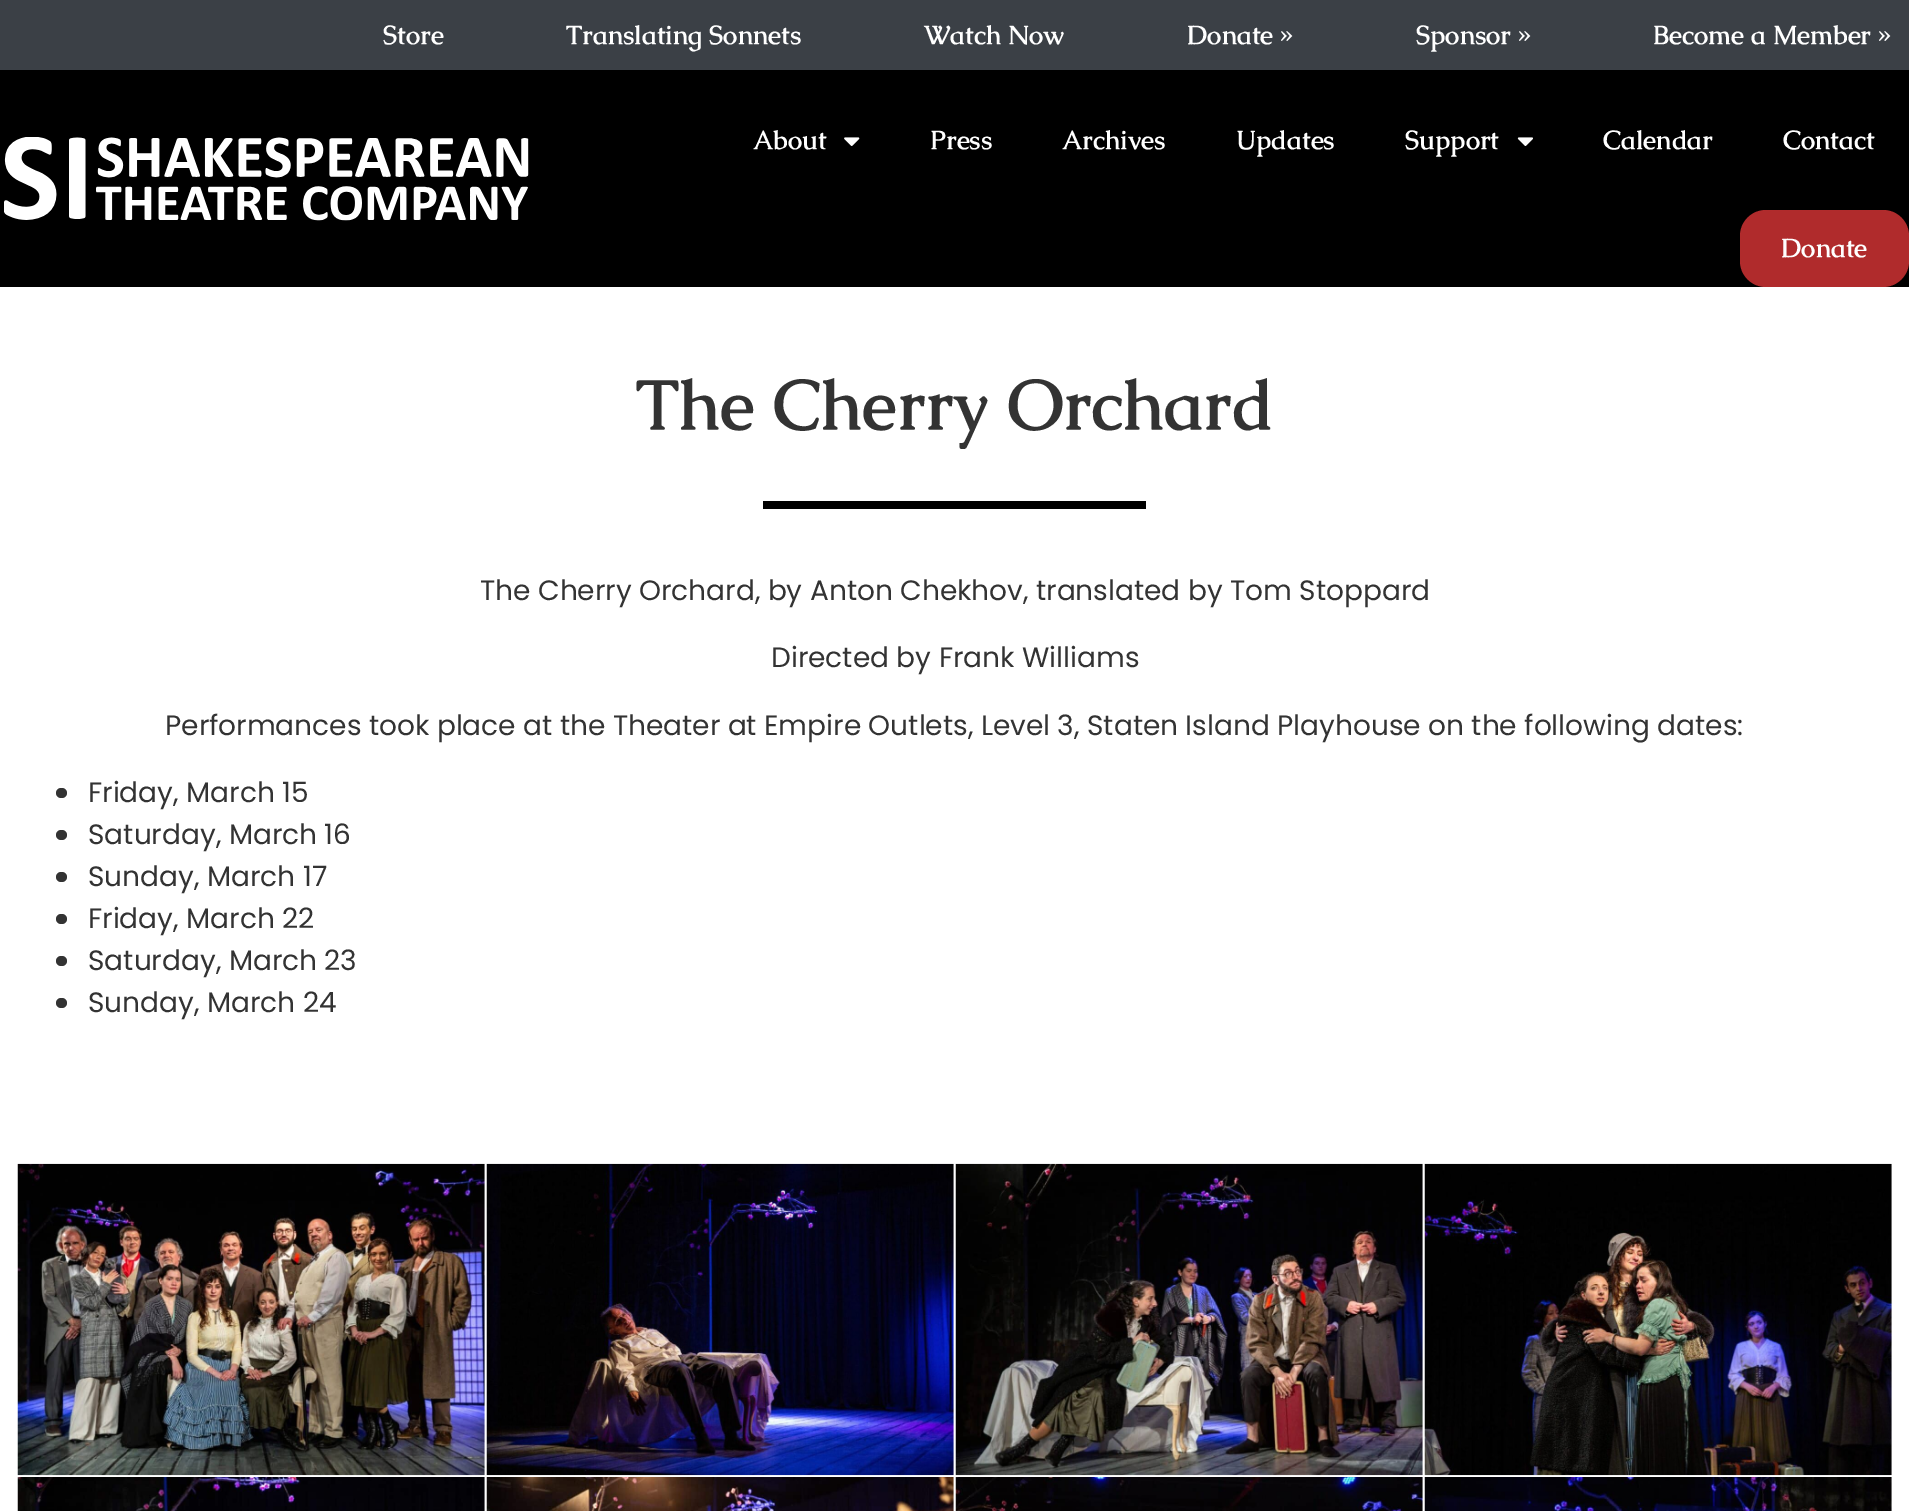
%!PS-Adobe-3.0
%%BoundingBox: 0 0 1909 1511
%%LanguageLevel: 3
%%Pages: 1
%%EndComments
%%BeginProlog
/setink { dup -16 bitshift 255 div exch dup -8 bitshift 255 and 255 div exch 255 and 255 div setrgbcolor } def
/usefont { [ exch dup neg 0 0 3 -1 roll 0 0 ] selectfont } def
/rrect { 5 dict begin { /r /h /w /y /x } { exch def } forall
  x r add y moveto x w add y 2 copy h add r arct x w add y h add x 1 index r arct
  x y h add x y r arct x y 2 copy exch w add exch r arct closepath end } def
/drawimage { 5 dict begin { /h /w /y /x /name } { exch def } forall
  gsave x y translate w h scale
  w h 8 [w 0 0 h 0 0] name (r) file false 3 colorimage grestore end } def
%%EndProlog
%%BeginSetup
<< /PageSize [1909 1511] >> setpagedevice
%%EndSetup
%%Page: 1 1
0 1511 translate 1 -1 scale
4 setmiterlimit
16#FFFFFF setink
0 0 1909 1511 rectfill
16#3B4046 setink
0 0 1909 70 rectfill
/Caudex-Bold 26.25 usefont
16#FFFFFF setink
[
    [(Store) 383 44]
    [(Translating Sonnets) 566 44]
    [(Watch Now) 924 44]
    [(Donate ») 1187 44]
    [(Sponsor ») 1416 44]
    [(Become a Member ») 1653 44]
] { aload pop moveto show } forall
16#000000 setink
0 70 1909 217 rectfill
(img1.raw) 4 137 525 84 drawimage
16#FFFFFF setink
753 149 moveto (About) show
(img2.raw) 844 137 16 9 drawimage
[
    [(Press) 930 149]
    [(Archives) 1062 149]
    [(Updates) 1236 149]
    [(Support) 1405 149]
] { aload pop moveto show } forall
(img3.raw) 1517 137 16 9 drawimage
1603 149 moveto (Calendar) show
1783 149 moveto (Contact) show
16#B02B2C setink
1740 210 169 77 26 rrect fill
16#FFFFFF setink
1781 257 moveto (Donate) show
/Caudex-Bold 70 usefont
16#333333 setink
636 429 moveto (The Cherry Orchard) show
16#000000 setink
763 501 383 8 rectfill
/Poppins-Regular 28 usefont
16#333333 setink
[
    [(The Cherry Orchard, by Anton Chekhov, translated by Tom Stoppard) 480 600]
    [(Directed by Frank Williams) 771 667]
    [(Performances took place at the Theater at Empire Outlets, Level 3, Staten Island Playhouse on the following dates:) 165 735]
] { aload pop moveto show } forall
56 788 11 10 5 rrect fill
88 802 moveto (Friday, March 15) show
56 830 11 10 5 rrect fill
88 844 moveto (Saturday, March 16) show
56 872 11 10 5 rrect fill
88 886 moveto (Sunday, March 17) show
56 914 11 10 5 rrect fill
88 928 moveto (Friday, March 22) show
56 956 11 10 5 rrect fill
88 970 moveto (Saturday, March 23) show
56 998 11 10 5 rrect fill
88 1012 moveto (Sunday, March 24) show
(img4.raw) 17 1163 468 313 drawimage
(img5.raw) 486 1163 468 313 drawimage
(img6.raw) 955 1163 468 313 drawimage
(img7.raw) 1424 1163 468 313 drawimage
(img8.raw) 17 1477 468 34 drawimage
(img9.raw) 486 1477 468 34 drawimage
(img10.raw) 955 1477 468 34 drawimage
(img11.raw) 1424 1477 468 34 drawimage
showpage
%%EOF
